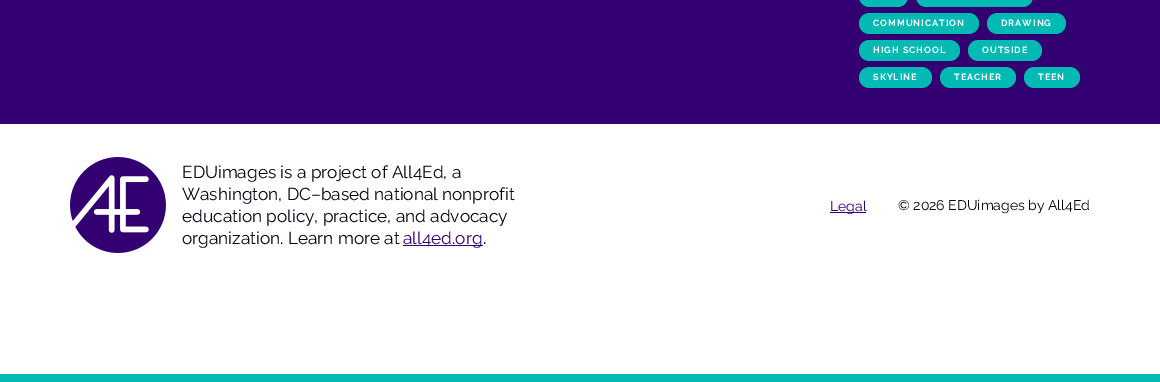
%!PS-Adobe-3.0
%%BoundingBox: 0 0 1160 382
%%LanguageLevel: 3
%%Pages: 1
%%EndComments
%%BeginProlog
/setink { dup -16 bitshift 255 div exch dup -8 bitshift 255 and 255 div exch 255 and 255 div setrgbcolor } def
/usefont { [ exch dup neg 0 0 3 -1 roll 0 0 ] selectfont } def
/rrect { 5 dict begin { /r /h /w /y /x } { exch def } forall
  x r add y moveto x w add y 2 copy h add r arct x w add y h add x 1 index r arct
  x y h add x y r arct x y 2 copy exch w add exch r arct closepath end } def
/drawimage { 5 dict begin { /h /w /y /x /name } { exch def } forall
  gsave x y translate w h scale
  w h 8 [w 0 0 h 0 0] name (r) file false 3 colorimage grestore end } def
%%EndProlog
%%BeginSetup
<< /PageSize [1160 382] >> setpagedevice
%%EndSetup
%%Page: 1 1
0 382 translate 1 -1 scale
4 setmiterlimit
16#FFFFFF setink
0 0 1160 382 rectfill
16#330072 setink
0 0 1160 124 rectfill
16#00BAB3 setink
859 -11 49 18 10.5 rrect fill
916 -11 117 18 10.5 rrect fill
859 13 120 21 10.5 rrect fill
/Raleway-Bold 9 usefont
16#FFFFFF setink
873 26 moveto 1 0 (COMMUNICATION) ashow
16#00BAB3 setink
987 13 79 21 10.5 rrect fill
16#FFFFFF setink
1001 26 moveto 1 0 (DRAWING) ashow
16#00BAB3 setink
859 40 101 21 10.5 rrect fill
16#FFFFFF setink
873 53 moveto 1 0 (HIGH SCHOOL) ashow
16#00BAB3 setink
968 40 74 21 10.5 rrect fill
16#FFFFFF setink
982 53 moveto 1 0 (OUTSIDE) ashow
16#00BAB3 setink
859 67 73 21 10.5 rrect fill
16#FFFFFF setink
873 80 moveto 1 0 (SKYLINE) ashow
16#00BAB3 setink
940 67 76 21 10.5 rrect fill
16#FFFFFF setink
954 80 moveto 1 0 (TEACHER) ashow
16#00BAB3 setink
1024 67 56 21 10.5 rrect fill
16#FFFFFF setink
1038 80 moveto 1 0 (TEEN) ashow
16#00BAB3 setink
0 374 1160 8 rectfill
(img1.raw) 70 157 96 96 drawimage
/Raleway-Regular 17.25 usefont
16#090013 setink
[
    [(EDUimages is a project of All4Ed, a) 182 178]
    [(Washington, DC–based national nonprofit) 182 200]
    [(education policy, practice, and advocacy) 182 222]
    [(organization. Learn more at) 182 244]
] { aload pop moveto show } forall
16#330072 setink
403 245 80 1 rectfill
403 244 moveto (all4ed.org) show
16#090013 setink
483 244 moveto (.) show
16#330072 setink
830 212 36 1 rectfill
/Raleway-Regular 14 usefont
830 211 moveto (Legal) show
16#090013 setink
898 210 moveto (© 2026 EDUimages by All4Ed) show
showpage
%%EOF
